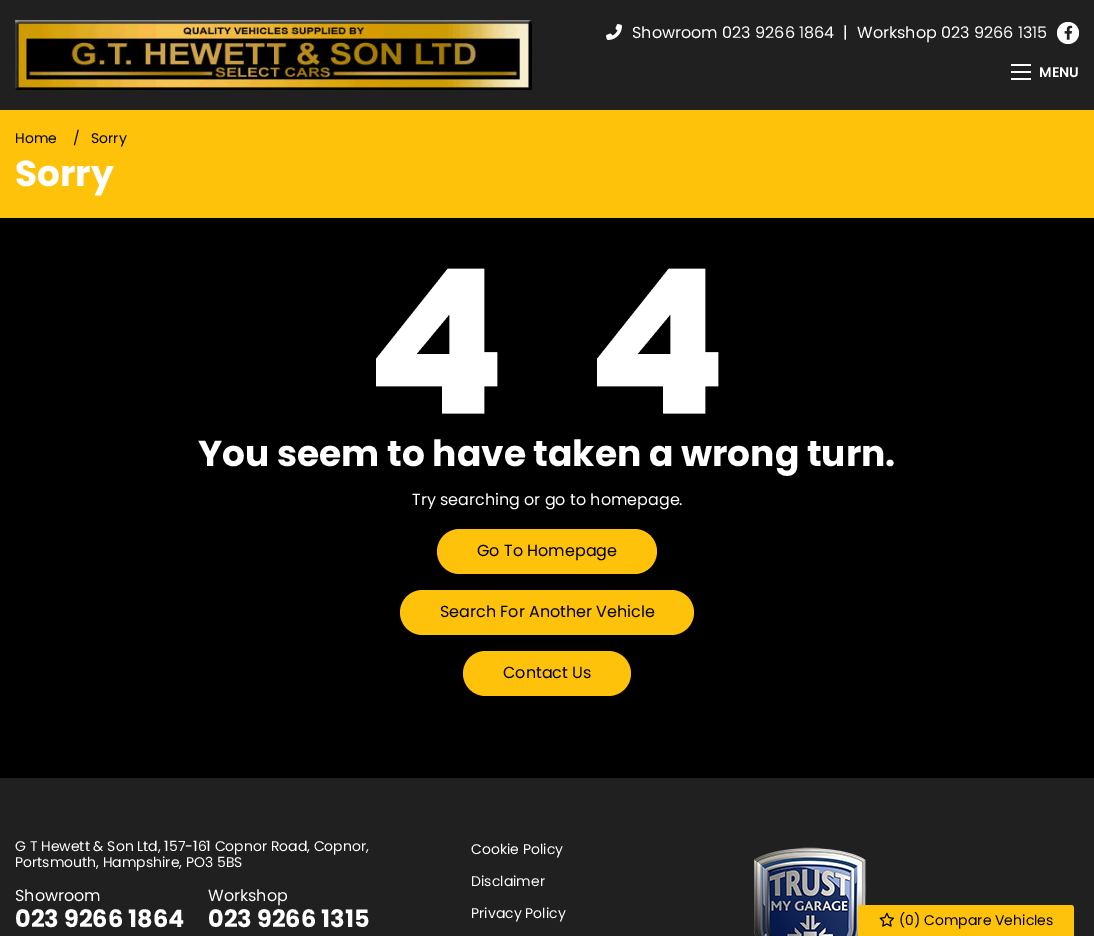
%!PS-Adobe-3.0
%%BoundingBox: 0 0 1094 936
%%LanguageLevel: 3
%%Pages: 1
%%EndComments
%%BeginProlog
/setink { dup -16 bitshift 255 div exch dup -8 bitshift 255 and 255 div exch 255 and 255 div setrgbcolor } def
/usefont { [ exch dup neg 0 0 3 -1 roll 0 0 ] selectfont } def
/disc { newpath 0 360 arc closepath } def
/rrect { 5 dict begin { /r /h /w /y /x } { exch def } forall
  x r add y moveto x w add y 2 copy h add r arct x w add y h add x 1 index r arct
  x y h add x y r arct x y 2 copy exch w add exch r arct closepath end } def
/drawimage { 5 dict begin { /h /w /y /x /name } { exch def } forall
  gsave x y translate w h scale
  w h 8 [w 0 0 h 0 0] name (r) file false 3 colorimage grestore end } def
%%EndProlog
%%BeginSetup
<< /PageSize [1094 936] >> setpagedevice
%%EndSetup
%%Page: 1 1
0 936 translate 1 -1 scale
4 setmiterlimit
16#000000 setink
0 0 1094 936 rectfill
16#202020 setink
0 0 1094 110 rectfill
16#FFC20A setink
0 110 1094 108 rectfill
(img1.raw) 15 20 517 70 drawimage
(img2.raw) 606 24 16 16 drawimage
/Poppins-Regular 16 usefont
16#FFFFFF setink
[
    [(Showroom 023 9266 1864) 632 38]
    [(|) 843 38]
    [(Workshop 023 9266 1315) 857 38]
] { aload pop moveto show } forall
1068 33 11 disc fill
(img3.raw) 1064 25 9 15 drawimage
[
    [1011 78 20 2 16#FFFFFF]
    [1011 71 20 2 16#FFFFFF]
    [1011 64 20 2 16#FFFFFF]
] { aload pop setink rectfill } forall
/Poppins-SemiBold 14 usefont
1039 77 moveto (MENU) show
16#202020 setink
0 778 1094 158 rectfill
(img6.raw) 754 847 112 89 drawimage
16#FFC20A setink
861 905 moveto 1071 905 lineto 1072.5 905 1074 906.5 1074 908 curveto 1074 936 lineto 858 936 lineto 858 908 lineto 858 906.5 859.5 905 861 905 curveto closepath fill
(img4.raw) 879 912 16 15 drawimage
/Poppins-Regular 14 usefont
16#000000 setink
[
    [(\(0\) Compare Vehicles) 899 925]
    [(Home) 15 143]
    [(/) 73 143]
    [(Sorry) 91 143]
] { aload pop moveto show } forall
/Poppins-Bold 36 usefont
16#FFFFFF setink
15 186 moveto (Sorry) show
(img5.raw) 376 268 343 146 drawimage
198 466 moveto (You seem to have taken a wrong turn.) show
/Poppins-Regular 16 usefont
412 505 moveto (Try searching or go to homepage.) show
16#FFC20A setink
437 529 220 45 22.5 rrect fill
16#000000 setink
477 556 moveto (Go To Homepage) show
16#FFC20A setink
400 590 294 45 22.5 rrect fill
16#000000 setink
440 617 moveto (Search For Another Vehicle) show
16#FFC20A setink
463 651 168 45 22.5 rrect fill
16#000000 setink
503 678 moveto (Contact Us) show
/Poppins-Regular 14 usefont
16#FFFFFF setink
15 851 moveto (G T Hewett & Son Ltd, 157-161 Copnor Road, Copnor,) show
15 867 moveto (Portsmouth, Hampshire, PO3 5BS) show
/Poppins-Regular 16 usefont
15 901 moveto (Showroom) show
/Poppins-Bold 24 usefont
15 927 moveto (023 9266 1864) show
/Poppins-Regular 16 usefont
208 901 moveto (Workshop) show
/Poppins-Bold 24 usefont
208 927 moveto (023 9266 1315) show
/Poppins-Regular 14 usefont
[
    [(Cookie Policy) 471 854]
    [(Disclaimer) 471 886]
    [(Privacy Policy) 471 918]
] { aload pop moveto show } forall
showpage
%%EOF
